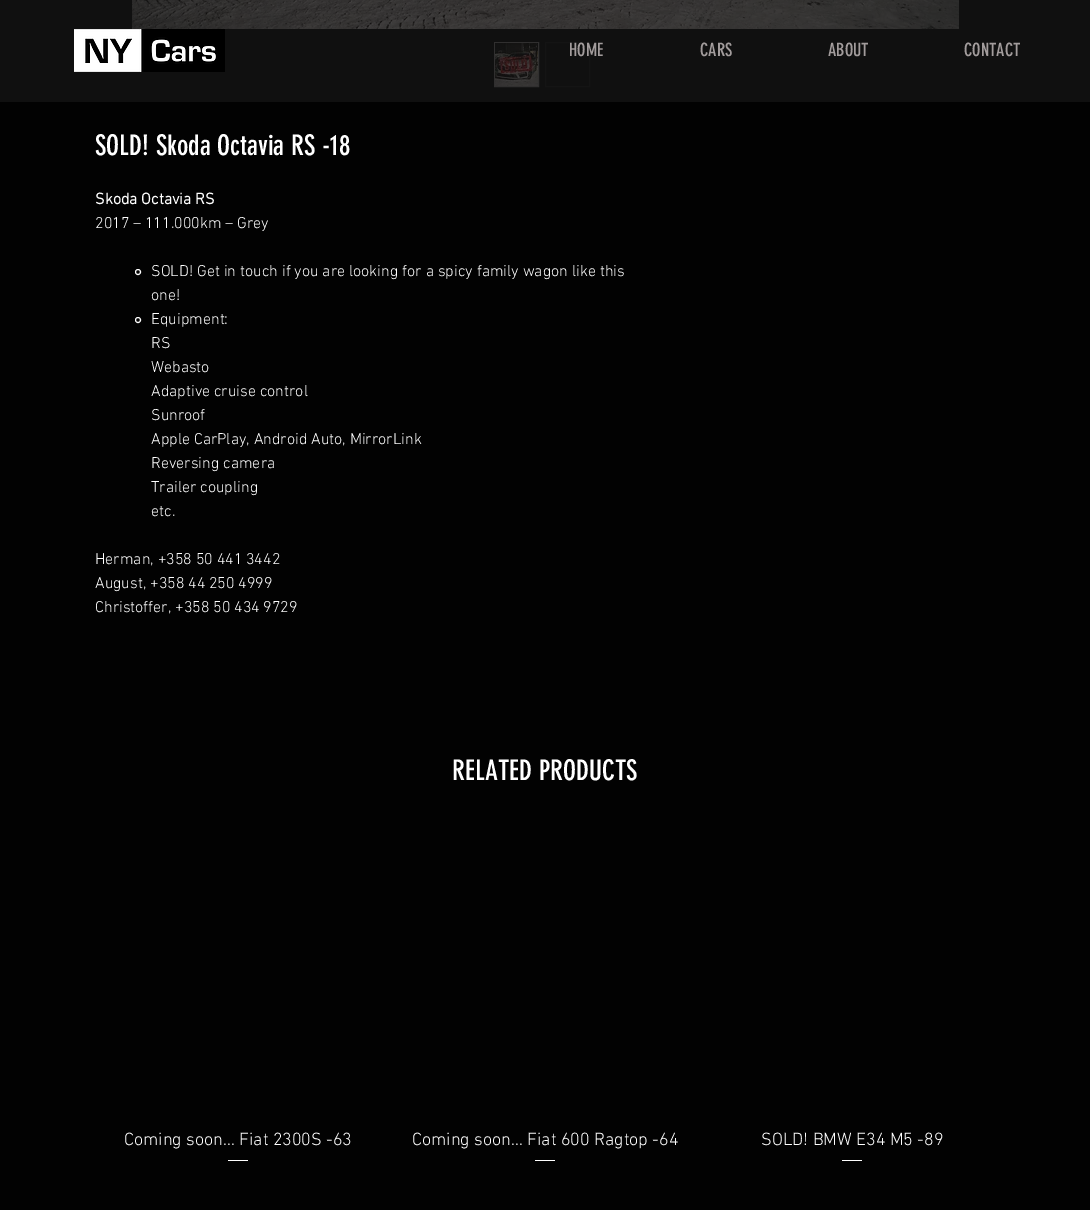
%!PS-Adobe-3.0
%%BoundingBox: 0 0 1090 1223
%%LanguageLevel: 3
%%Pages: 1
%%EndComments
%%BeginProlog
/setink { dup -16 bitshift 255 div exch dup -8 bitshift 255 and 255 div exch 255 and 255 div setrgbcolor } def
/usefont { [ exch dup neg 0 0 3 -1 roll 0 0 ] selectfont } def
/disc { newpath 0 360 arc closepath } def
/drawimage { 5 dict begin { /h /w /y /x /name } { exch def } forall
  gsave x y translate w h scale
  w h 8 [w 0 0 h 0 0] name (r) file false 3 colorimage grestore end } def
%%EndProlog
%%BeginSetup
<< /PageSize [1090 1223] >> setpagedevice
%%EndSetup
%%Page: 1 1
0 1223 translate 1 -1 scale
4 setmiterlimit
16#020202 setink
0 0 1090 1223 rectfill
16#101010 setink
0 0 1090 102 rectfill
(img1.raw) 74 29 151 43 drawimage
16#141414 setink
545.5 42.5 44 44 rectstroke
/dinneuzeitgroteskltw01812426-Regular 18 usefont
16#A29C9C setink
[
    [(HOME) 569 56]
    [(CARS) 700 56]
    [(ABOUT) 828 56]
    [(CONTACT) 964 56]
] { aload pop moveto show } forall
(img2.raw) 132 0 827 29 drawimage
16#302F2F setink
494.5 42.5 44 44 rectstroke
(img3.raw) 495 43 43 43 drawimage
/dinneuzeitgroteskltw01812426-Regular 28 usefont
16#FFFFFF setink
95 155 moveto (SOLD! Skoda Octavia RS -18) show
/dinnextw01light-Bold 16 usefont
95 204 moveto (Skoda Octavia RS) show
/dinnextw01light-Light 16 usefont
95 228 moveto (2017 – 111.000km – Grey) show
138 272 2.5 disc stroke
151 276 moveto (SOLD! Get in touch if you are looking for a spicy family wagon like this) show
151 300 moveto (one!) show
138 320 2.5 disc stroke
[
    [(Equipment:) 151 324]
    [(RS) 151 348]
    [(Webasto) 151 372]
    [(Adaptive cruise control) 151 396]
    [(Sunroof) 151 420]
    [(Apple CarPlay, Android Auto, MirrorLink) 151 444]
    [(Reversing camera) 151 468]
    [(Trailer coupling) 151 492]
    [(etc.) 151 516]
    [(Herman, +358 50 441 3442) 95 564]
    [(August, +358 44 250 4999) 95 588]
    [(Christoffer, +358 50 434 9729) 95 612]
] { aload pop moveto show } forall
/dinneuzeitgroteskltw01812426-Regular 28 usefont
452 780 moveto (RELATED PRODUCTS) show
/dinnextw01light-Light 18 usefont
124 1145 moveto (Coming soon... Fiat 2300S -63) show
228 1160 20 1 rectfill
412 1145 moveto (Coming soon... Fiat 600 Ragtop -64) show
535 1160 20 1 rectfill
761 1145 moveto (SOLD! BMW E34 M5 -89) show
842 1160 20 1 rectfill
0 1210 1090 13 rectfill
showpage
%%EOF
